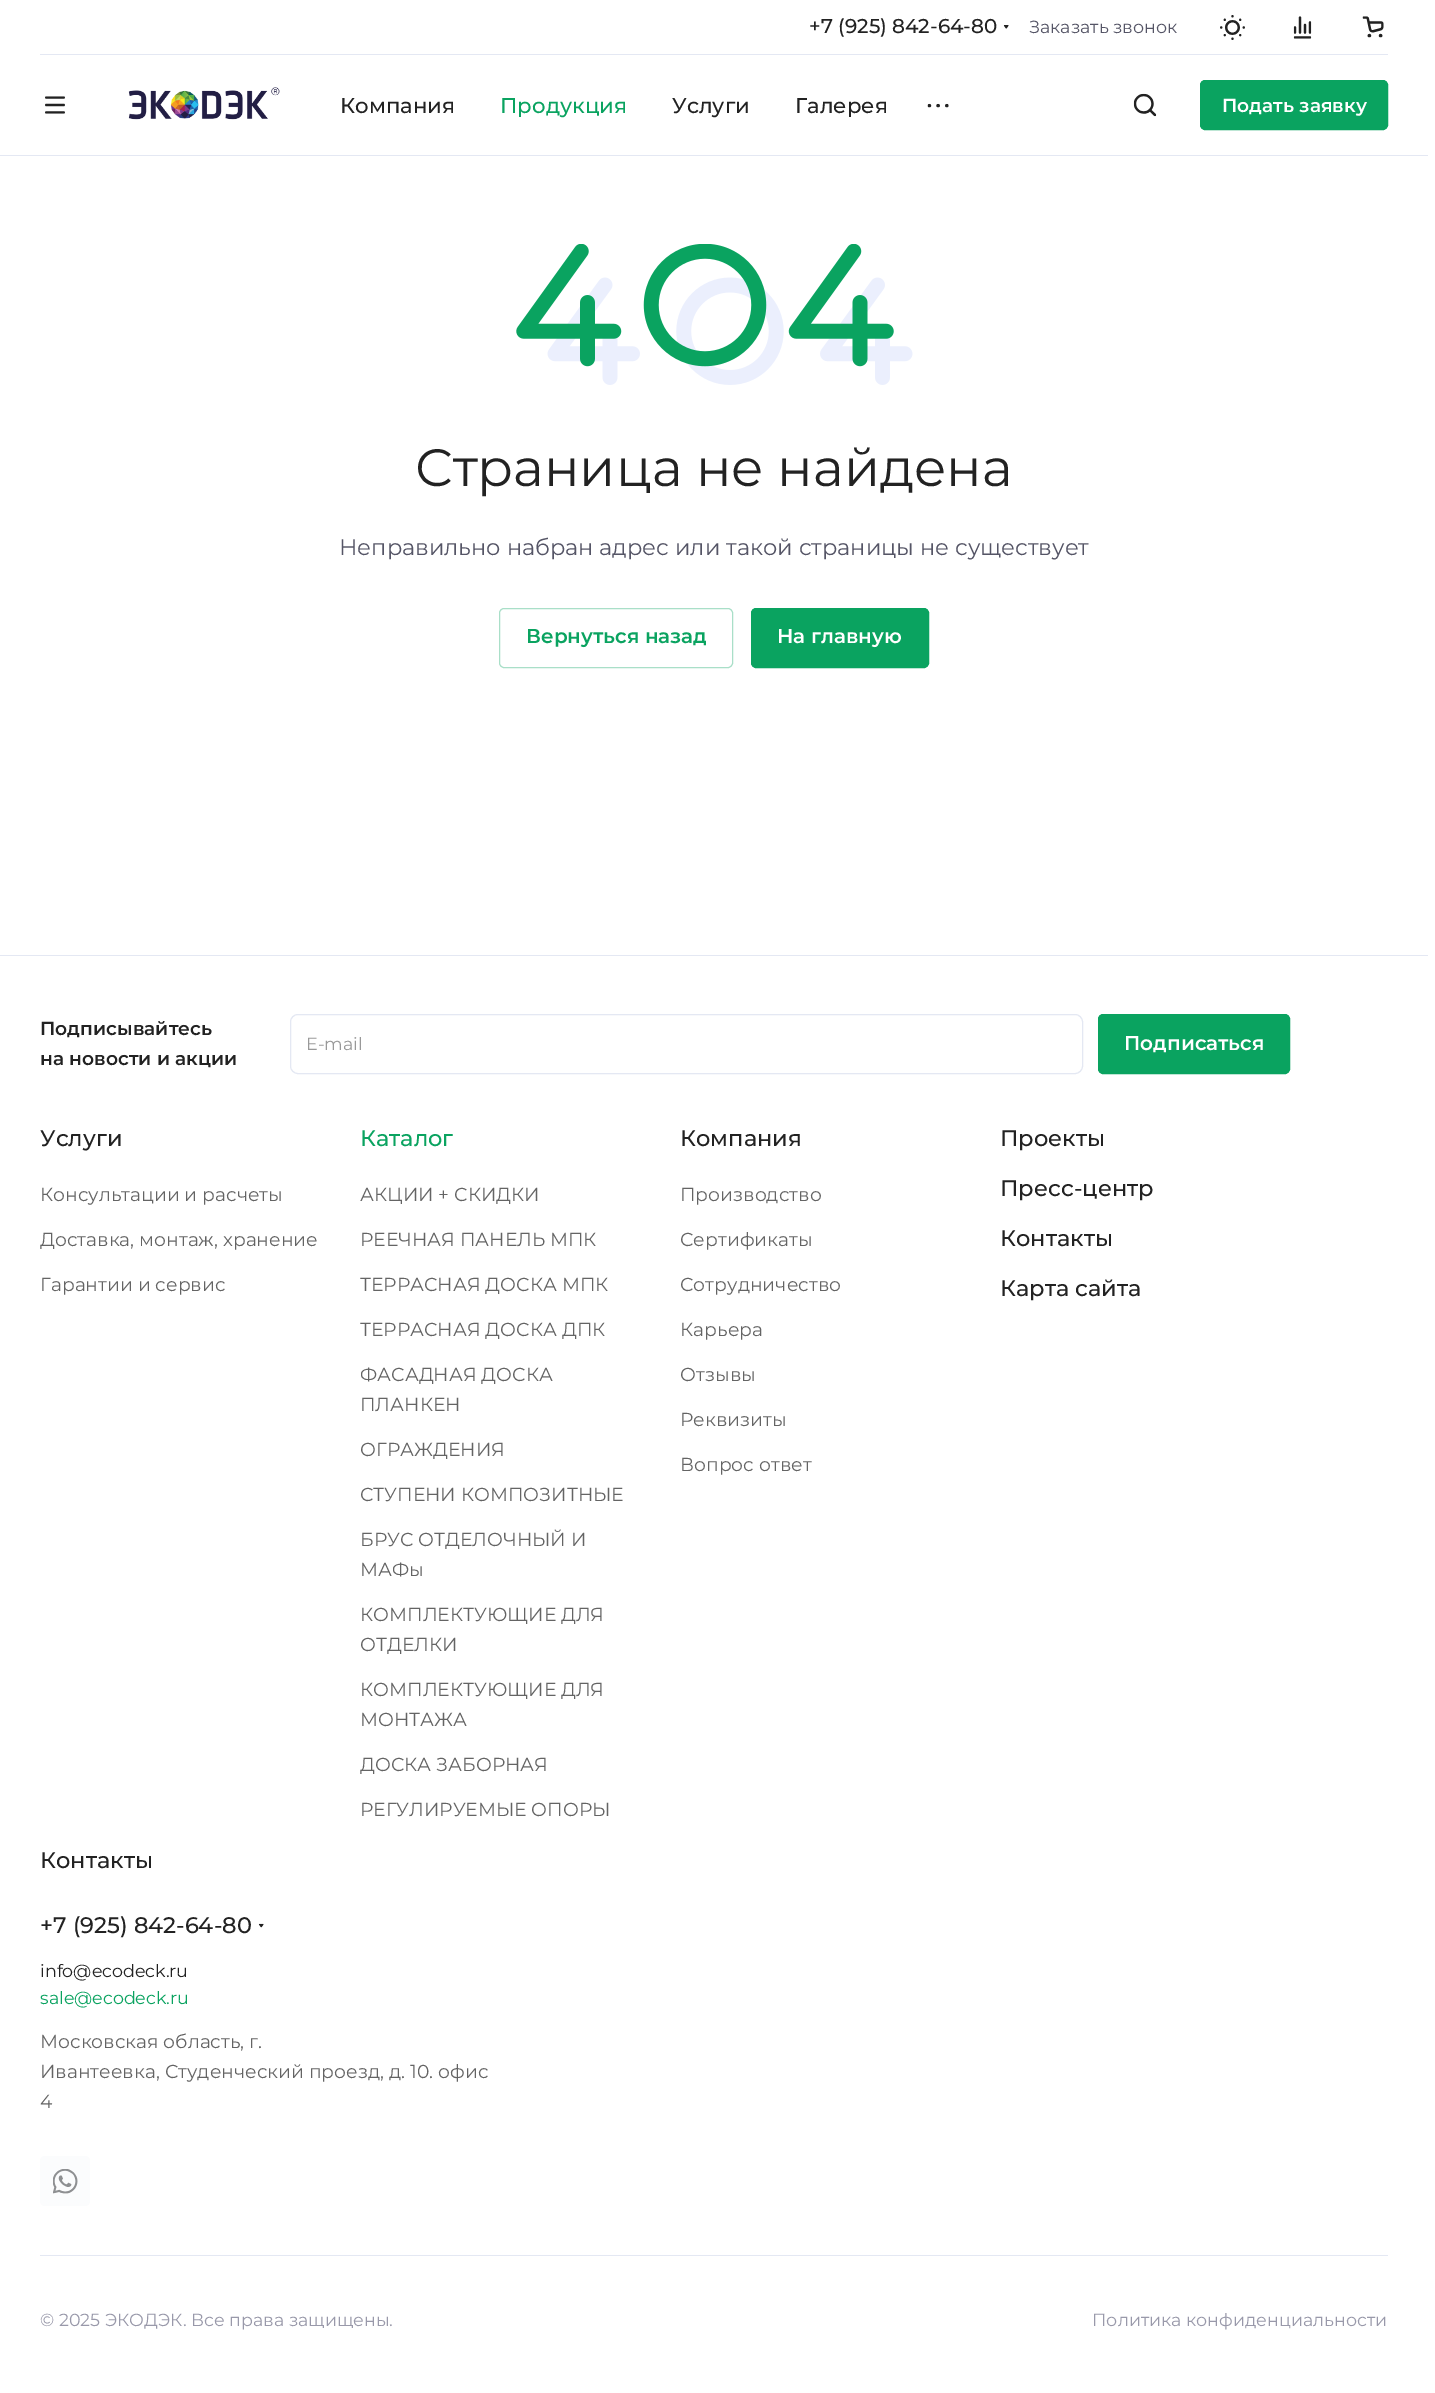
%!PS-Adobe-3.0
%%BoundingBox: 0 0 1435 2393
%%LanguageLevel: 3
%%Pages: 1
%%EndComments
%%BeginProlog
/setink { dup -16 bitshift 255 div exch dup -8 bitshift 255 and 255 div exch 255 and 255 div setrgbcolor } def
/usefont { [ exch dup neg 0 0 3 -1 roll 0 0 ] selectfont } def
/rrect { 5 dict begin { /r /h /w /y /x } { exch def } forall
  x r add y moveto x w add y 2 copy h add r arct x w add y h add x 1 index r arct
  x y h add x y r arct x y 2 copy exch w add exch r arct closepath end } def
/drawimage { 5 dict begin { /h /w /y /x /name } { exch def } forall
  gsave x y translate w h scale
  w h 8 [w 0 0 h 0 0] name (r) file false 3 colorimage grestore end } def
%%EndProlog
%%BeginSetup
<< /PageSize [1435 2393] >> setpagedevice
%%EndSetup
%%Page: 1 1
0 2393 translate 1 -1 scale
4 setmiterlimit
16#FFFFFF setink
0 0 1435 2393 rectfill
16#E4E8F3 setink
0 155 1428 1 rectfill
40 54 1348 1 rectfill
/Montserrat-Medium 20 usefont
16#222222 setink
809 33 moveto (+7 \(925\) 842-64-80) show
(img1.raw) 1003 25 6 4 drawimage
/Montserrat-Regular 17.5 usefont
16#555566 setink
1029 33 moveto (Заказать звонок) show
(img2.raw) 1220 15 25 25 drawimage
(img3.raw) 1293 16 19 23 drawimage
(img4.raw) 1362 16 22 22 drawimage
(img5.raw) 45 96 20 18 drawimage
(img6.raw) 128 87 152 33 drawimage
/Montserrat-Medium 21.25 usefont
16#222222 setink
340 113 moveto (Компания) show
16#0AA360 setink
500 113 moveto (Продукция) show
16#222222 setink
672 113 moveto (Услуги) show
795 113 moveto (Галерея) show
(img7.raw) 927 103 22 5 drawimage
(img8.raw) 1133 93 24 24 drawimage
16#0AA360 setink
1200.5 80.5 187 49 4.5 rrect gsave fill grestore
stroke
/Montserrat-SemiBold 18.75 usefont
16#FFFFFF setink
1222 112 moveto (Подать заявку) show
(img9.raw) 516 244 397 141 drawimage
/Montserrat-Regular 52.5 usefont
16#222222 setink
415 486 moveto (Страница не найдена) show
/Montserrat-Regular 22.5 usefont
16#555566 setink
339 555 moveto (Неправильно набран адрес или такой страницы не существует) show
16#A9DFC8 setink
499.5 608.5 233 59 4.5 rrect stroke
/Montserrat-SemiBold 20 usefont
16#0AA360 setink
526 643 moveto (Вернуться назад) show
751.5 608.5 177 59 4.5 rrect gsave fill grestore
stroke
16#FFFFFF setink
777 643 moveto (На главную) show
16#E4E8F3 setink
0 955 1428 1 rectfill
/Montserrat-SemiBold 18.75 usefont
16#222222 setink
40 1035 moveto (Подписывайтесь) show
40 1065 moveto (на новости и акции) show
16#E4E8F3 setink
290.5 1014.5 792 59 7.5 rrect stroke
/Montserrat-Regular 17.5 usefont
16#999999 setink
306 1050 moveto (E-mail) show
16#0AA360 setink
1098.5 1014.5 191 59 4.5 rrect gsave fill grestore
stroke
/Montserrat-SemiBold 20 usefont
16#FFFFFF setink
1124 1050 moveto (Подписаться) show
/Montserrat-Medium 22.5 usefont
16#222222 setink
40 1146 moveto (Услуги) show
/Montserrat-Regular 18.75 usefont
16#646464 setink
[
    [(Консультации и расчеты) 40 1201]
    [(Доставка, монтаж, хранение) 40 1246]
    [(Гарантии и сервис) 40 1291]
] { aload pop moveto show } forall
/Montserrat-Medium 22.5 usefont
16#0AA360 setink
360 1146 moveto (Каталог) show
/Montserrat-Regular 18.75 usefont
16#646464 setink
[
    [(АКЦИИ + СКИДКИ) 360 1201]
    [(РЕЕЧНАЯ ПАНЕЛЬ МПК) 360 1246]
    [(ТЕРРАСНАЯ ДОСКА МПК) 360 1291]
    [(ТЕРРАСНАЯ ДОСКА ДПК) 360 1336]
    [(ФАСАДНАЯ ДОСКА) 360 1381]
    [(ПЛАНКЕН) 360 1411]
    [(ОГРАЖДЕНИЯ) 360 1456]
    [(СТУПЕНИ КОМПОЗИТНЫЕ) 360 1501]
    [(БРУС ОТДЕЛОЧНЫЙ И) 360 1546]
    [(МАФы) 360 1576]
    [(КОМПЛЕКТУЮЩИЕ ДЛЯ) 360 1621]
    [(ОТДЕЛКИ) 360 1651]
    [(КОМПЛЕКТУЮЩИЕ ДЛЯ) 360 1696]
    [(МОНТАЖА) 360 1726]
    [(ДОСКА ЗАБОРНАЯ) 360 1771]
    [(РЕГУЛИРУЕМЫЕ ОПОРЫ) 360 1816]
] { aload pop moveto show } forall
/Montserrat-Medium 22.5 usefont
16#222222 setink
680 1146 moveto (Компания) show
/Montserrat-Regular 18.75 usefont
16#646464 setink
[
    [(Производство) 680 1201]
    [(Сертификаты) 680 1246]
    [(Сотрудничество) 680 1291]
    [(Карьера) 680 1336]
    [(Отзывы) 680 1381]
    [(Реквизиты) 680 1426]
    [(Вопрос ответ) 680 1471]
] { aload pop moveto show } forall
/Montserrat-Medium 22.5 usefont
16#222222 setink
[
    [(Проекты) 1000 1146]
    [(Пресс-центр) 1000 1196]
    [(Контакты) 1000 1246]
    [(Карта сайта) 1000 1296]
    [(Контакты) 40 1868]
    [(+7 \(925\) 842-64-80) 40 1933]
] { aload pop moveto show } forall
(img10.raw) 258 1923 6 5 drawimage
/Montserrat-Regular 17.5 usefont
40 1977 moveto (info@ecodeck.ru) show
16#0AA360 setink
40 2004 moveto (sale@ecodeck.ru) show
/Montserrat-Regular 18.75 usefont
16#646464 setink
[
    [(Московская область, г.) 40 2048]
    [(Ивантеевка, Студенческий проезд, д. 10. офис) 40 2078]
    [(4) 40 2108]
] { aload pop moveto show } forall
16#FBFCFD setink
40 2156 50 50 5 rrect fill
(img11.raw) 53 2169 25 25 drawimage
16#E4E8F3 setink
40 2255 1348 1 rectfill
/Montserrat-Regular 17.5 usefont
16#9999AA setink
40 2326 moveto (© 2025 ЭКОДЭК. Все права защищены.) show
1092 2326 moveto (Политика конфиденциальности) show
showpage
%%EOF
